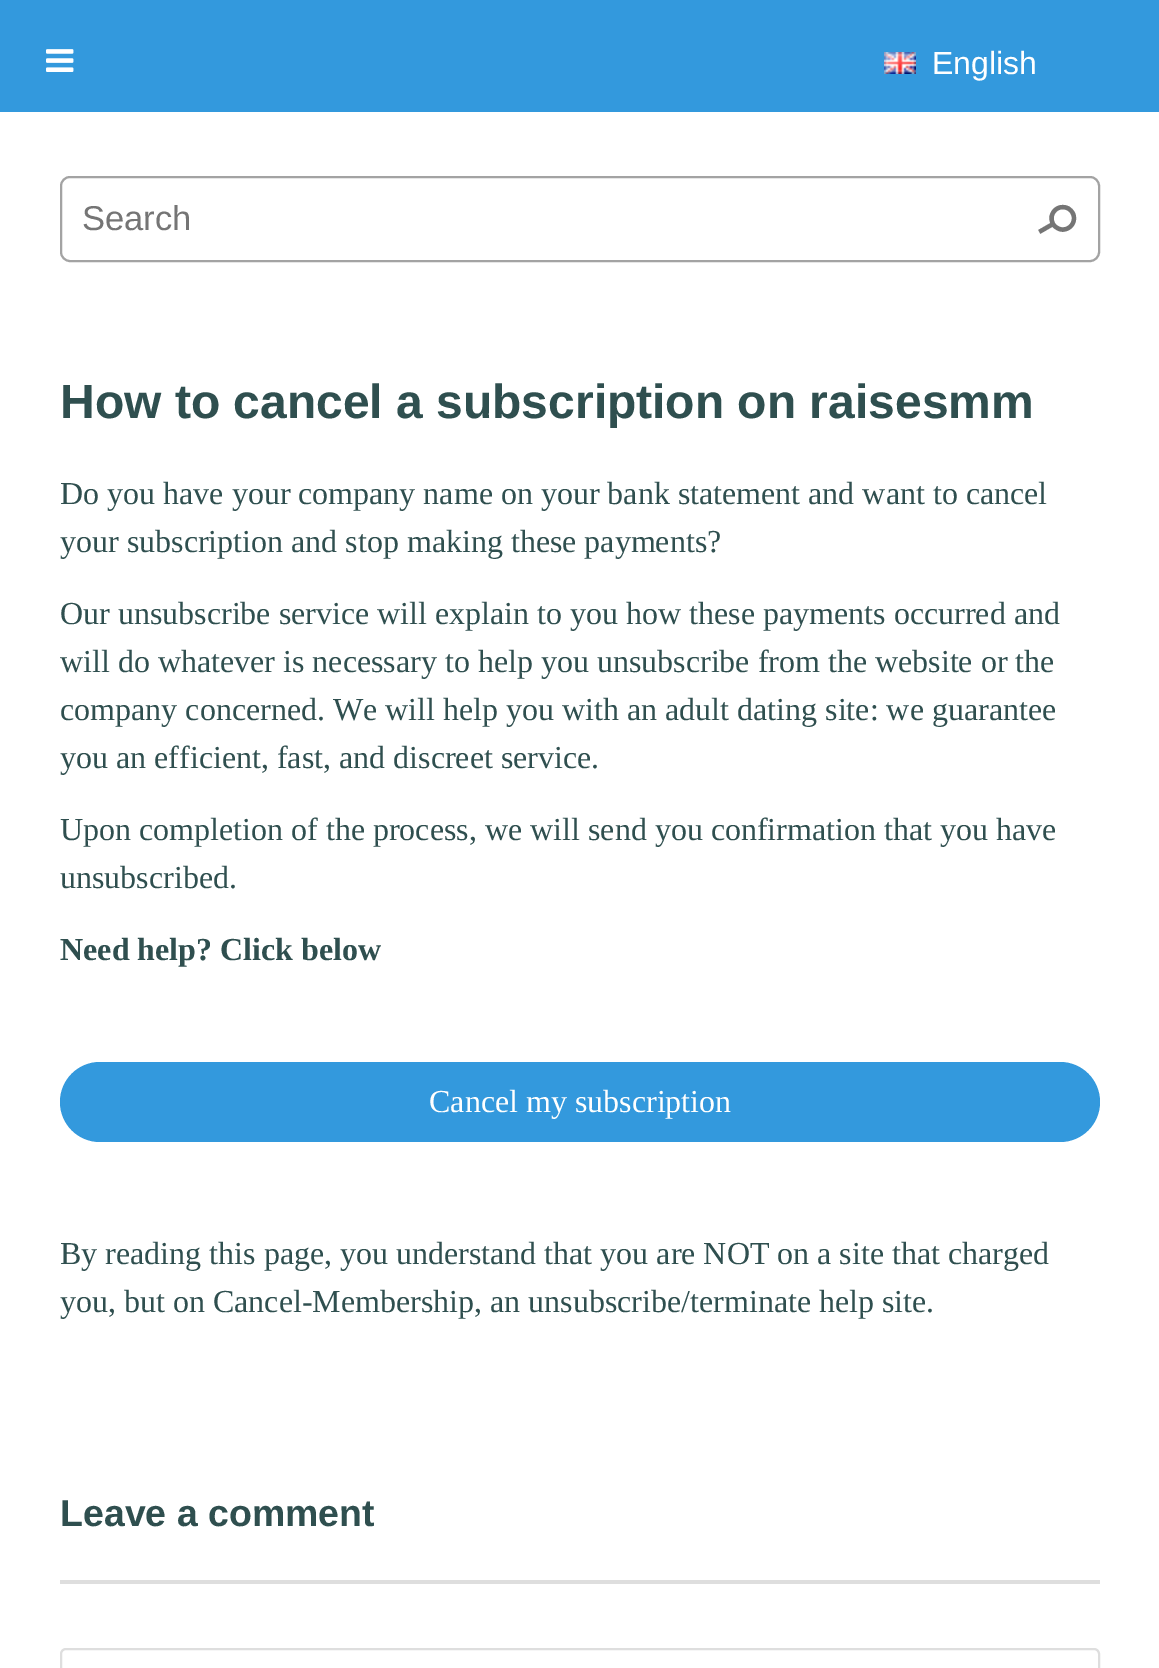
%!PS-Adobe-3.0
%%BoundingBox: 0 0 1159 1668
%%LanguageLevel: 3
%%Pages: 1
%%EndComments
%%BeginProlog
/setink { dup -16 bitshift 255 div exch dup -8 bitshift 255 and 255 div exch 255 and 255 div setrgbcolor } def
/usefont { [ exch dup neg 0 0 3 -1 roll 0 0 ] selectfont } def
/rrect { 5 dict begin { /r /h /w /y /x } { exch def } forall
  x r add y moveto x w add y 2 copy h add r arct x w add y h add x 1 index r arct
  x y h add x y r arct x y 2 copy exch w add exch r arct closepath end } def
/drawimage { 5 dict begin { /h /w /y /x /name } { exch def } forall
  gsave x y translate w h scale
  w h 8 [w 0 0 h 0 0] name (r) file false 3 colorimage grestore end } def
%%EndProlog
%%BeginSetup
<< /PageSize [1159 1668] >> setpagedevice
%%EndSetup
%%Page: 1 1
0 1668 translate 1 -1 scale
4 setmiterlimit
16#FFFFFF setink
0 0 1159 1668 rectfill
16#3399DD setink
0 0 1159 112 rectfill
(img1.raw) 46 49 28 23 drawimage
(img2.raw) 884 52 32 22 drawimage
/LiberationSans-Regular 32 usefont
16#FFFFFF setink
932 74 moveto (English) show
16#A3A3A3 setink
2 setlinewidth
61 177 1038 84 9 rrect stroke
/LiberationSans-Regular 34.5 usefont
16#757575 setink
82 230 moveto (Search) show
/DejaVuSans-Regular 53 usefont
gsave 1084 215 translate -150 rotate 0 0 moveto (☌) show grestore
/LiberationSans-Bold 48 usefont
16#2F4F4F setink
60 418 moveto (How to cancel a subscription on raisesmm) show
/LiberationSerif-Regular 32 usefont
[
    [(Do you have your company name on your bank statement and want to cancel) 60 504]
    [(your subscription and stop making these payments?) 60 552]
    [(Our unsubscribe service will explain to you how these payments occurred and) 60 624]
    [(will do whatever is necessary to help you unsubscribe from the website or the) 60 672]
    [(company concerned. We will help you with an adult dating site: we guarantee) 60 720]
    [(you an efficient, fast, and discreet service.) 60 768]
    [(Upon completion of the process, we will send you confirmation that you have) 60 840]
    [(unsubscribed.) 60 888]
] { aload pop moveto show } forall
/LiberationSerif-Bold 32 usefont
60 960 moveto (Need help? Click below) show
16#3399DD setink
60 1062 1040 80 40 rrect fill
/LiberationSerif-Regular 32 usefont
16#FFFFFF setink
429 1112 moveto (Cancel my subscription) show
16#2F4F4F setink
60 1264 moveto (By reading this page, you understand that you are NOT on a site that charged) show
60 1312 moveto (you, but on Cancel-Membership, an unsubscribe/terminate help site.) show
/LiberationSans-Bold 37.5 usefont
60 1526 moveto (Leave a comment) show
16#DEDEDE setink
60 1580 1040 4 rectfill
61 1649 1038 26 5 rrect stroke
showpage
%%EOF
